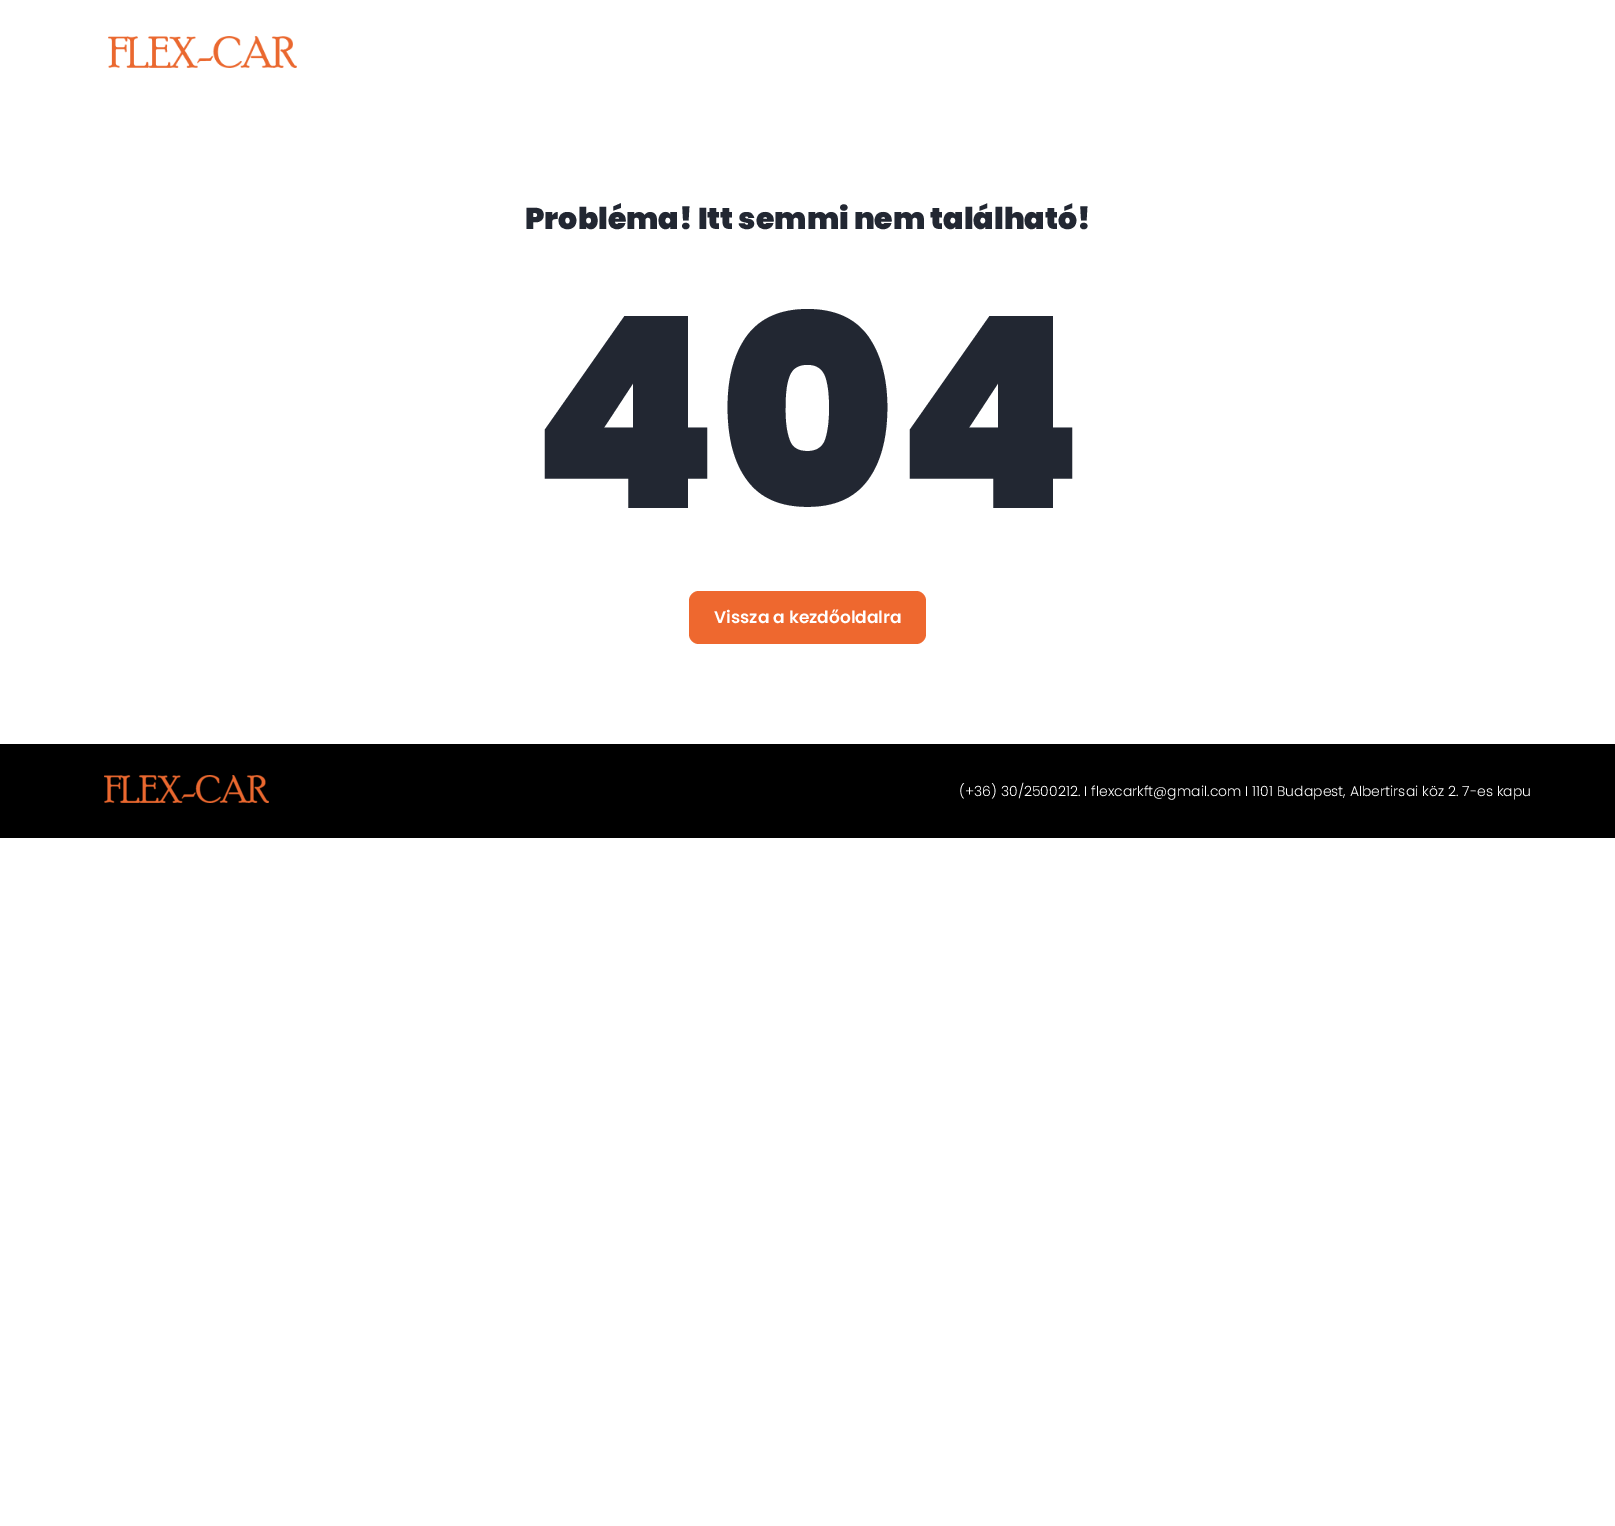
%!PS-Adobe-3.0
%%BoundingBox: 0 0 1615 1526
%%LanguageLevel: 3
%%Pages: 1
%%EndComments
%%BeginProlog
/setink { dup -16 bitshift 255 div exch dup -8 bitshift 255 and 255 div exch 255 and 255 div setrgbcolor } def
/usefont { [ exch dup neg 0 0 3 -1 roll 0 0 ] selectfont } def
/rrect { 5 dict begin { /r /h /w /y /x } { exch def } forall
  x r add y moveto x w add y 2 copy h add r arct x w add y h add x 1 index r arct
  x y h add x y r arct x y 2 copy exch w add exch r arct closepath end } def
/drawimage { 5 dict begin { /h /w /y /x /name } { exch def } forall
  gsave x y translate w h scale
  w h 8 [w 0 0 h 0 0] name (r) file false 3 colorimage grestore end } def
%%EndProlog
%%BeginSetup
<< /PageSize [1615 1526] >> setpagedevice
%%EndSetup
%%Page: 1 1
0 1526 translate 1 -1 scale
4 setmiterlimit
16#FFFFFF setink
0 0 1615 1526 rectfill
(img1.raw) 108 36 189 32 drawimage
/Poppins-Black 30 usefont
16#222732 setink
525 229 moveto (Probléma! Itt semmi nem található!) show
/Poppins-Black 267 usefont
531 508 moveto (404) show
16#EE682F setink
689 591 237 53 10 rrect fill
/Poppins-SemiBold 17 usefont
16#FFFFFF setink
714 623 moveto (Vissza a kezdőoldalra) show
16#000000 setink
0 744 1615 94 rectfill
(img2.raw) 104 775 165 28 drawimage
/Poppins-Light 14 usefont
16#FFFFFF setink
959 796 moveto (\(+36\) 30/2500212. I flexcarkft@gmail.com I 1101 Budapest, Albertirsai köz 2. 7-es kapu) show
showpage
%%EOF
